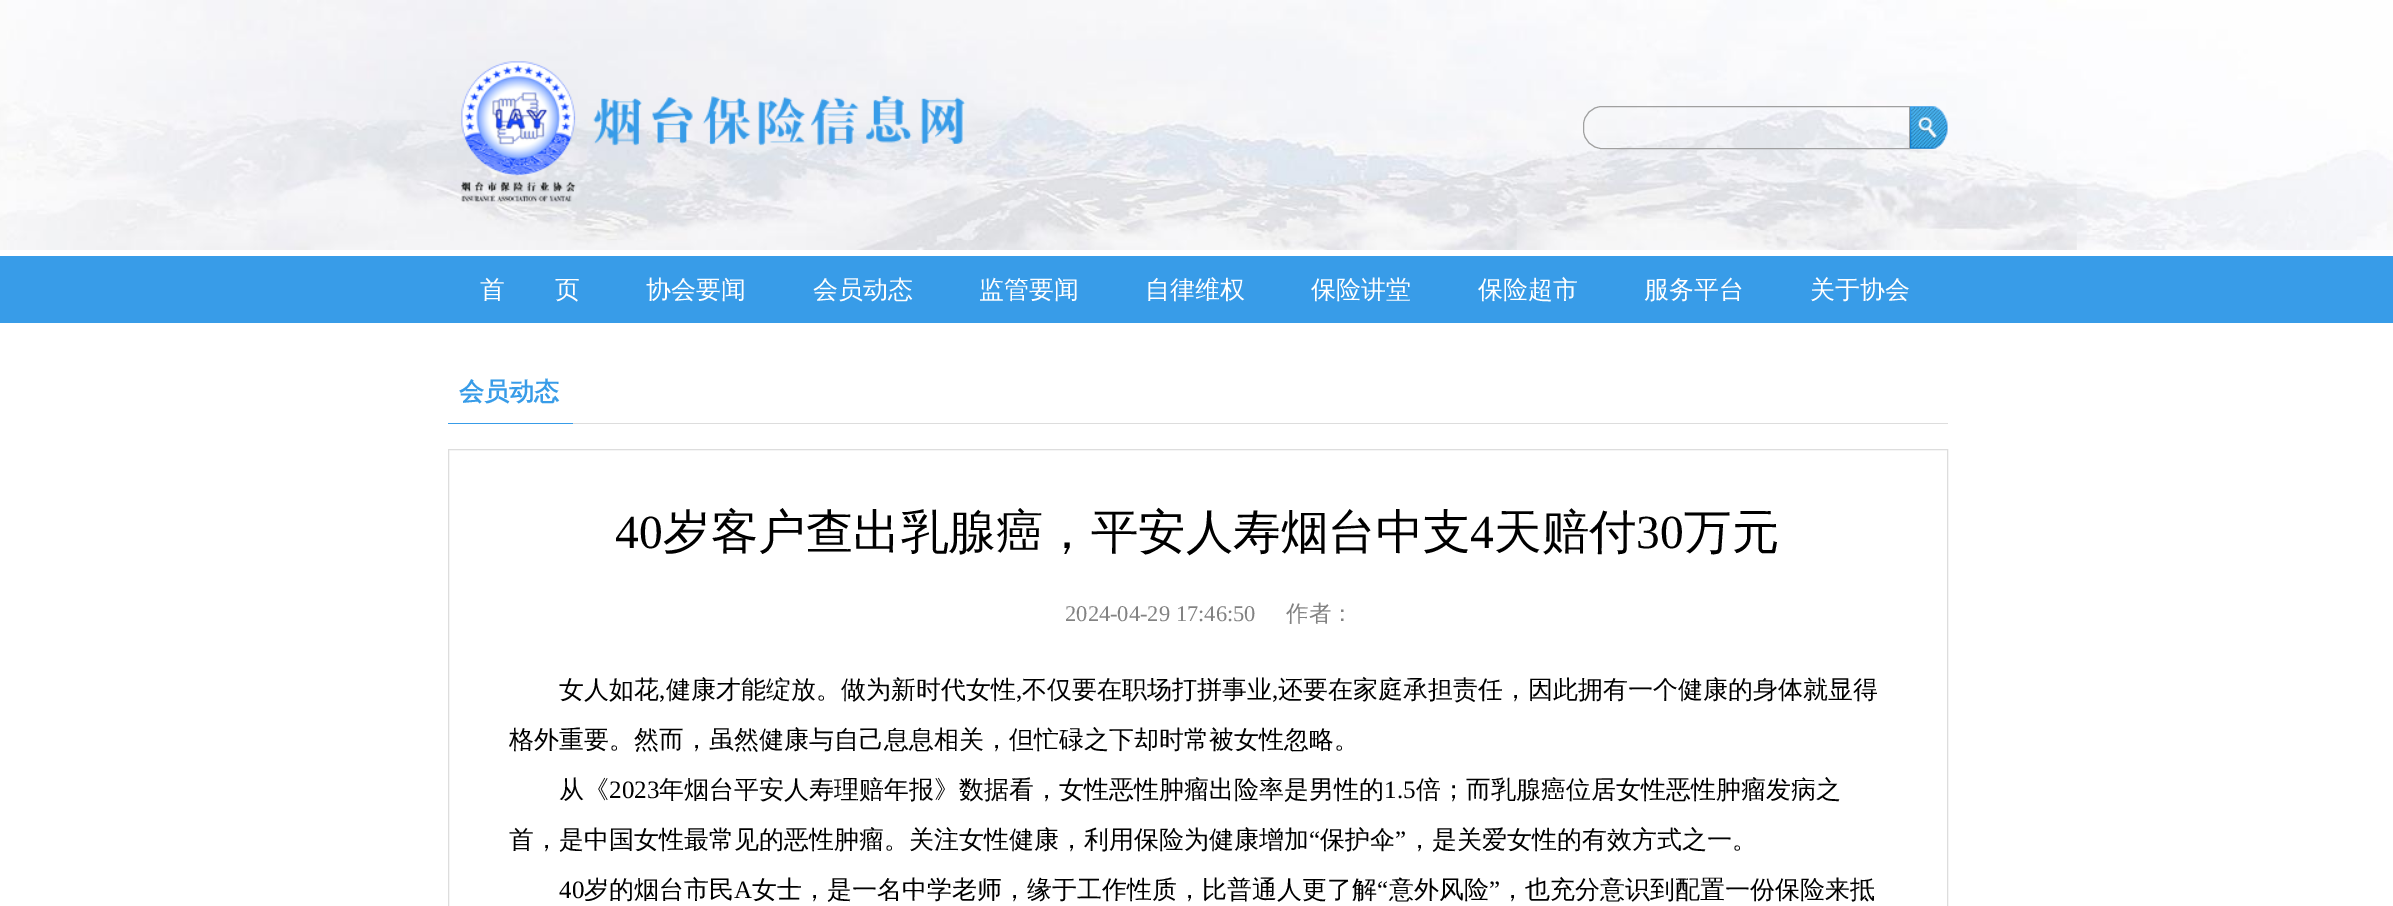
%!PS-Adobe-3.0
%%BoundingBox: 0 0 2393 906
%%LanguageLevel: 3
%%Pages: 1
%%EndComments
%%BeginProlog
/setink { dup -16 bitshift 255 div exch dup -8 bitshift 255 and 255 div exch 255 and 255 div setrgbcolor } def
/usefont { [ exch dup neg 0 0 3 -1 roll 0 0 ] selectfont } def
/drawimage { 5 dict begin { /h /w /y /x /name } { exch def } forall
  gsave x y translate w h scale
  w h 8 [w 0 0 h 0 0] name (r) file false 3 colorimage grestore end } def
%%EndProlog
%%BeginSetup
<< /PageSize [2393 906] >> setpagedevice
%%EndSetup
%%Page: 1 1
0 906 translate 1 -1 scale
4 setmiterlimit
16#FFFFFF setink
0 0 2393 906 rectfill
(img1.raw) 0 0 2393 250 drawimage
(img2.raw) 461 61 505 141 drawimage
16#A0A0A0 setink
1602 106.5 moveto 1909.5 106.5 lineto 1909.5 148.5 lineto 1602 148.5 lineto 1592 148.5 1583.5 140 1583.5 130 curveto 1583.5 125 lineto 1583.5 115 1592 106.5 1602 106.5 curveto closepath stroke
(img3.raw) 1910 106 38 43 drawimage
16#389CE8 setink
0 256 2393 67 rectfill
/WenQuanYiZenHei-Medium 25 usefont
16#FFFFFF setink
[
    [(首　　页) 480 298]
    [(协会要闻) 646 298]
    [(会员动态) 813 298]
    [(监管要闻) 979 298]
    [(自律维权) 1145 298]
    [(保险讲堂) 1311 298]
    [(保险超市) 1478 298]
    [(服务平台) 1644 298]
    [(关于协会) 1810 298]
] { aload pop moveto show } forall
16#DDDDDD setink
573 423 1375 1 rectfill
16#389CE8 setink
448 423 125 1 rectfill
/WenQuanYiZenHei-Bold 25 usefont
459 400 moveto (会员动态) show
16#DDDDDD setink
448.5 449.5 1499 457 rectstroke
/LiberationSerif-Regular 47.5 usefont
16#000000 setink
615 548 moveto (40) show
/WenQuanYiZenHei-Medium 47.5 usefont
663 548 moveto (岁客户查出乳腺癌，平安人寿烟台中支) show
/LiberationSerif-Regular 47.5 usefont
1470 548 moveto (4) show
/WenQuanYiZenHei-Medium 47.5 usefont
1494 548 moveto (天赔付) show
/LiberationSerif-Regular 47.5 usefont
1636 548 moveto (30) show
/WenQuanYiZenHei-Medium 47.5 usefont
1684 548 moveto (万元) show
/LiberationSerif-Regular 22.5 usefont
16#828282 setink
1065 621 moveto (2024-04-29 17:46:50) show
/WenQuanYiZenHei-Medium 22.5 usefont
1286 621 moveto (作者：) show
/WenQuanYiZenHei-Medium 25 usefont
16#000000 setink
559 698 moveto (女人如花) show
/LiberationSerif-Regular 25 usefont
659 698 moveto (,) show
/WenQuanYiZenHei-Medium 25 usefont
666 698 moveto (健康才能绽放。做为新时代女性) show
/LiberationSerif-Regular 25 usefont
1016 698 moveto (,) show
/WenQuanYiZenHei-Medium 25 usefont
1022 698 moveto (不仅要在职场打拼事业) show
/LiberationSerif-Regular 25 usefont
1272 698 moveto (,) show
/WenQuanYiZenHei-Medium 25 usefont
[
    [(还要在家庭承担责任，因此拥有一个健康的身体就显得) 1278 698]
    [(格外重要。然而，虽然健康与自己息息相关，但忙碌之下却时常被女性忽略。) 509 748]
    [(从《) 559 798]
] { aload pop moveto show } forall
/LiberationSerif-Regular 25 usefont
609 798 moveto (2023) show
/WenQuanYiZenHei-Medium 25 usefont
659 798 moveto (年烟台平安人寿理赔年报》数据看，女性恶性肿瘤出险率是男性的) show
/LiberationSerif-Regular 25 usefont
1384 798 moveto (1.5) show
/WenQuanYiZenHei-Medium 25 usefont
1416 798 moveto (倍；而乳腺癌位居女性恶性肿瘤发病之) show
509 848 moveto (首，是中国女性最常见的恶性肿瘤。关注女性健康，利用保险为健康增加) show
/LiberationSerif-Regular 25 usefont
1309 848 moveto (“) show
/WenQuanYiZenHei-Medium 25 usefont
1320 848 moveto (保护伞) show
/LiberationSerif-Regular 25 usefont
1395 848 moveto (”) show
/WenQuanYiZenHei-Medium 25 usefont
1407 848 moveto (，是关爱女性的有效方式之一。) show
/LiberationSerif-Regular 25 usefont
559 898 moveto (40) show
/WenQuanYiZenHei-Medium 25 usefont
584 898 moveto (岁的烟台市民) show
/LiberationSerif-Regular 25 usefont
734 898 moveto (A) show
/WenQuanYiZenHei-Medium 25 usefont
752 898 moveto (女士，是一名中学老师，缘于工作性质，比普通人更了解) show
/LiberationSerif-Regular 25 usefont
1377 898 moveto (“) show
/WenQuanYiZenHei-Medium 25 usefont
1389 898 moveto (意外风险) show
/LiberationSerif-Regular 25 usefont
1489 898 moveto (”) show
/WenQuanYiZenHei-Medium 25 usefont
1500 898 moveto (，也充分意识到配置一份保险来抵) show
showpage
%%EOF
